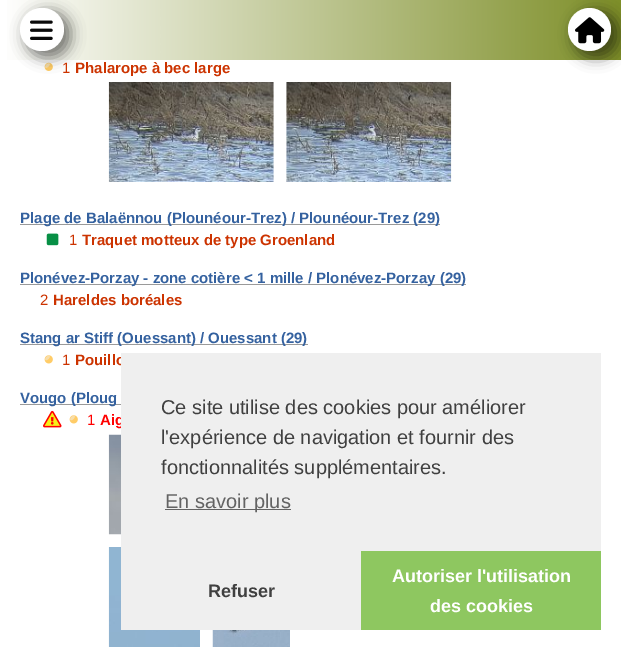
%!PS-Adobe-3.0
%%BoundingBox: 0 0 621 650
%%LanguageLevel: 3
%%Pages: 1
%%EndComments
%%BeginProlog
/setink { dup -16 bitshift 255 div exch dup -8 bitshift 255 and 255 div exch 255 and 255 div setrgbcolor } def
/usefont { [ exch dup neg 0 0 3 -1 roll 0 0 ] selectfont } def
/setalpha { dup .setfillconstantalpha .setstrokeconstantalpha } def
/disc { newpath 0 360 arc closepath } def
/rrect { 5 dict begin { /r /h /w /y /x } { exch def } forall
  x r add y moveto x w add y 2 copy h add r arct x w add y h add x 1 index r arct
  x y h add x y r arct x y 2 copy exch w add exch r arct closepath end } def
/softshadow { 12 dict begin { /a /b /q /h /w /y /x } { exch def } forall gsave /was 0 def
  9 -2 -9 { dup b mul 4 div /e exch def 1 sub .425 mul 2.718 exch exp 1 add a .99 .min exch div /now exch def
    1 1 now sub 1 was sub div sub setalpha /was now def
    w h .min e 2 mul add 0 gt { x e sub y e sub w e 2 mul add h e 2 mul add
      q e add b .6 mul add w h .min 2 div e add .min 0 .max rrect fill } if } for grestore end } def
/drawimage { 5 dict begin { /h /w /y /x /name } { exch def } forall
  gsave x y translate w h scale
  w h 8 [w 0 0 h 0 0] name (r) file false 3 colorimage grestore end } def
%%EndProlog
%%BeginSetup
<< /PageSize [621 650] /PageUsesTransparency true >> setpagedevice
%%EndSetup
%%Page: 1 1
0 .pushpdf14devicefilter
0 650 translate 1 -1 scale
4 setmiterlimit
16#FFFFFF setink
0 0 621 650 rectfill
gsave 7 0 moveto 621 0 lineto 621 60 lineto 7 60 lineto closepath clip newpath
<< /ShadingType 2 /ColorSpace /DeviceRGB /Coords [0 30 621 30] /Extend [true true] /Function << /FunctionType 2 /Domain [0 1] /C0 [1 1 1] /C1 [0.494 0.561 0.161] /N 1 >> >> shfill grestore
(img3.raw) 44 62 9 9 drawimage
(img4.raw) 45 63 5 5 drawimage
16#000000 setink
25 11 46 47 23 7 0.5 softshadow
16#FFFFFF setink
20 8 44 43 21.5 rrect fill
(img1.raw) 30 20 23 20 drawimage
16#000000 setink
573 11 46 47 23 7 0.5 softshadow
16#FFFFFF setink
589.5 29.5 21.5 disc fill
(img2.raw) 575 17 30 27 drawimage
/LiberationSans-Regular 15 usefont
16#CC3300 setink
62 73 moveto (1) show
/LiberationSans-Bold 15 usefont
75 73 moveto (Phalarope à bec large) show
(img5.raw) 108 82 166 100 drawimage
(img6.raw) 286 82 166 100 drawimage
16#9A9A9A setink
20 224 420 1 rectfill
16#34619F setink
20 223 moveto (Plage de Balaënnou \(Plounéour-Trez\) / Plounéour-Trez \(29\)) show
(img7.raw) 46 233 13 13 drawimage
/LiberationSans-Regular 15 usefont
16#CC3300 setink
69 245 moveto (1) show
/LiberationSans-Bold 15 usefont
82 245 moveto (Traquet motteux de type Groenland) show
16#9A9A9A setink
20 284 446 1 rectfill
16#34619F setink
20 283 moveto (Plonévez-Porzay - zone cotière < 1 mille / Plonévez-Porzay \(29\)) show
/LiberationSans-Regular 15 usefont
16#CC3300 setink
40 305 moveto (2) show
/LiberationSans-Bold 15 usefont
53 305 moveto (Hareldes boréales) show
16#9A9A9A setink
20 344 288 1 rectfill
16#34619F setink
20 343 moveto (Stang ar Stiff \(Ouessant\) / Ouessant \(29\)) show
(img8.raw) 44 355 9 9 drawimage
(img9.raw) 45 355 5 6 drawimage
/LiberationSans-Regular 15 usefont
16#CC3300 setink
62 365 moveto (1) show
/LiberationSans-Bold 15 usefont
75 365 moveto (Pouillo) show
16#9A9A9A setink
20 404 101 1 rectfill
16#34619F setink
20 403 moveto (Vougo \(Ploug) show
(img11.raw) 43 411 18 15 drawimage
(img10.raw) 43 410 19 18 drawimage
(img8.raw) 69 415 9 9 drawimage
(img12.raw) 70 415 5 6 drawimage
/LiberationSans-Regular 15 usefont
16#FF0000 setink
87 425 moveto (1) show
/LiberationSans-Bold 15 usefont
100 425 moveto (Aig) show
(img13.raw) 108 434 13 101 drawimage
(img14.raw) 108 547 92 100 drawimage
(img15.raw) 212 630 78 17 drawimage
16#EFEFEF setink
121 353 480 277 rectfill
/LiberationSans-Regular 20 usefont
16#404040 setink
[
    [(Ce site utilise des cookies pour améliorer) 161 414]
    [(l'expérience de navigation et fournir des) 161 444]
    [(fonctionnalités supplémentaires.) 161 474]
] { aload pop moveto show } forall
16#636363 setink
165 509 126 1 rectfill
165 508 moveto (En savoir plus) show
/LiberationSans-Bold 18 usefont
16#404040 setink
208 597 moveto (Refuser) show
16#8EC760 setink
361 551 240 79 rectfill
16#FFFFFF setink
392 582 moveto (Autoriser l'utilisation) show
430 612 moveto (des cookies) show
.poppdf14devicefilter showpage
%%EOF
